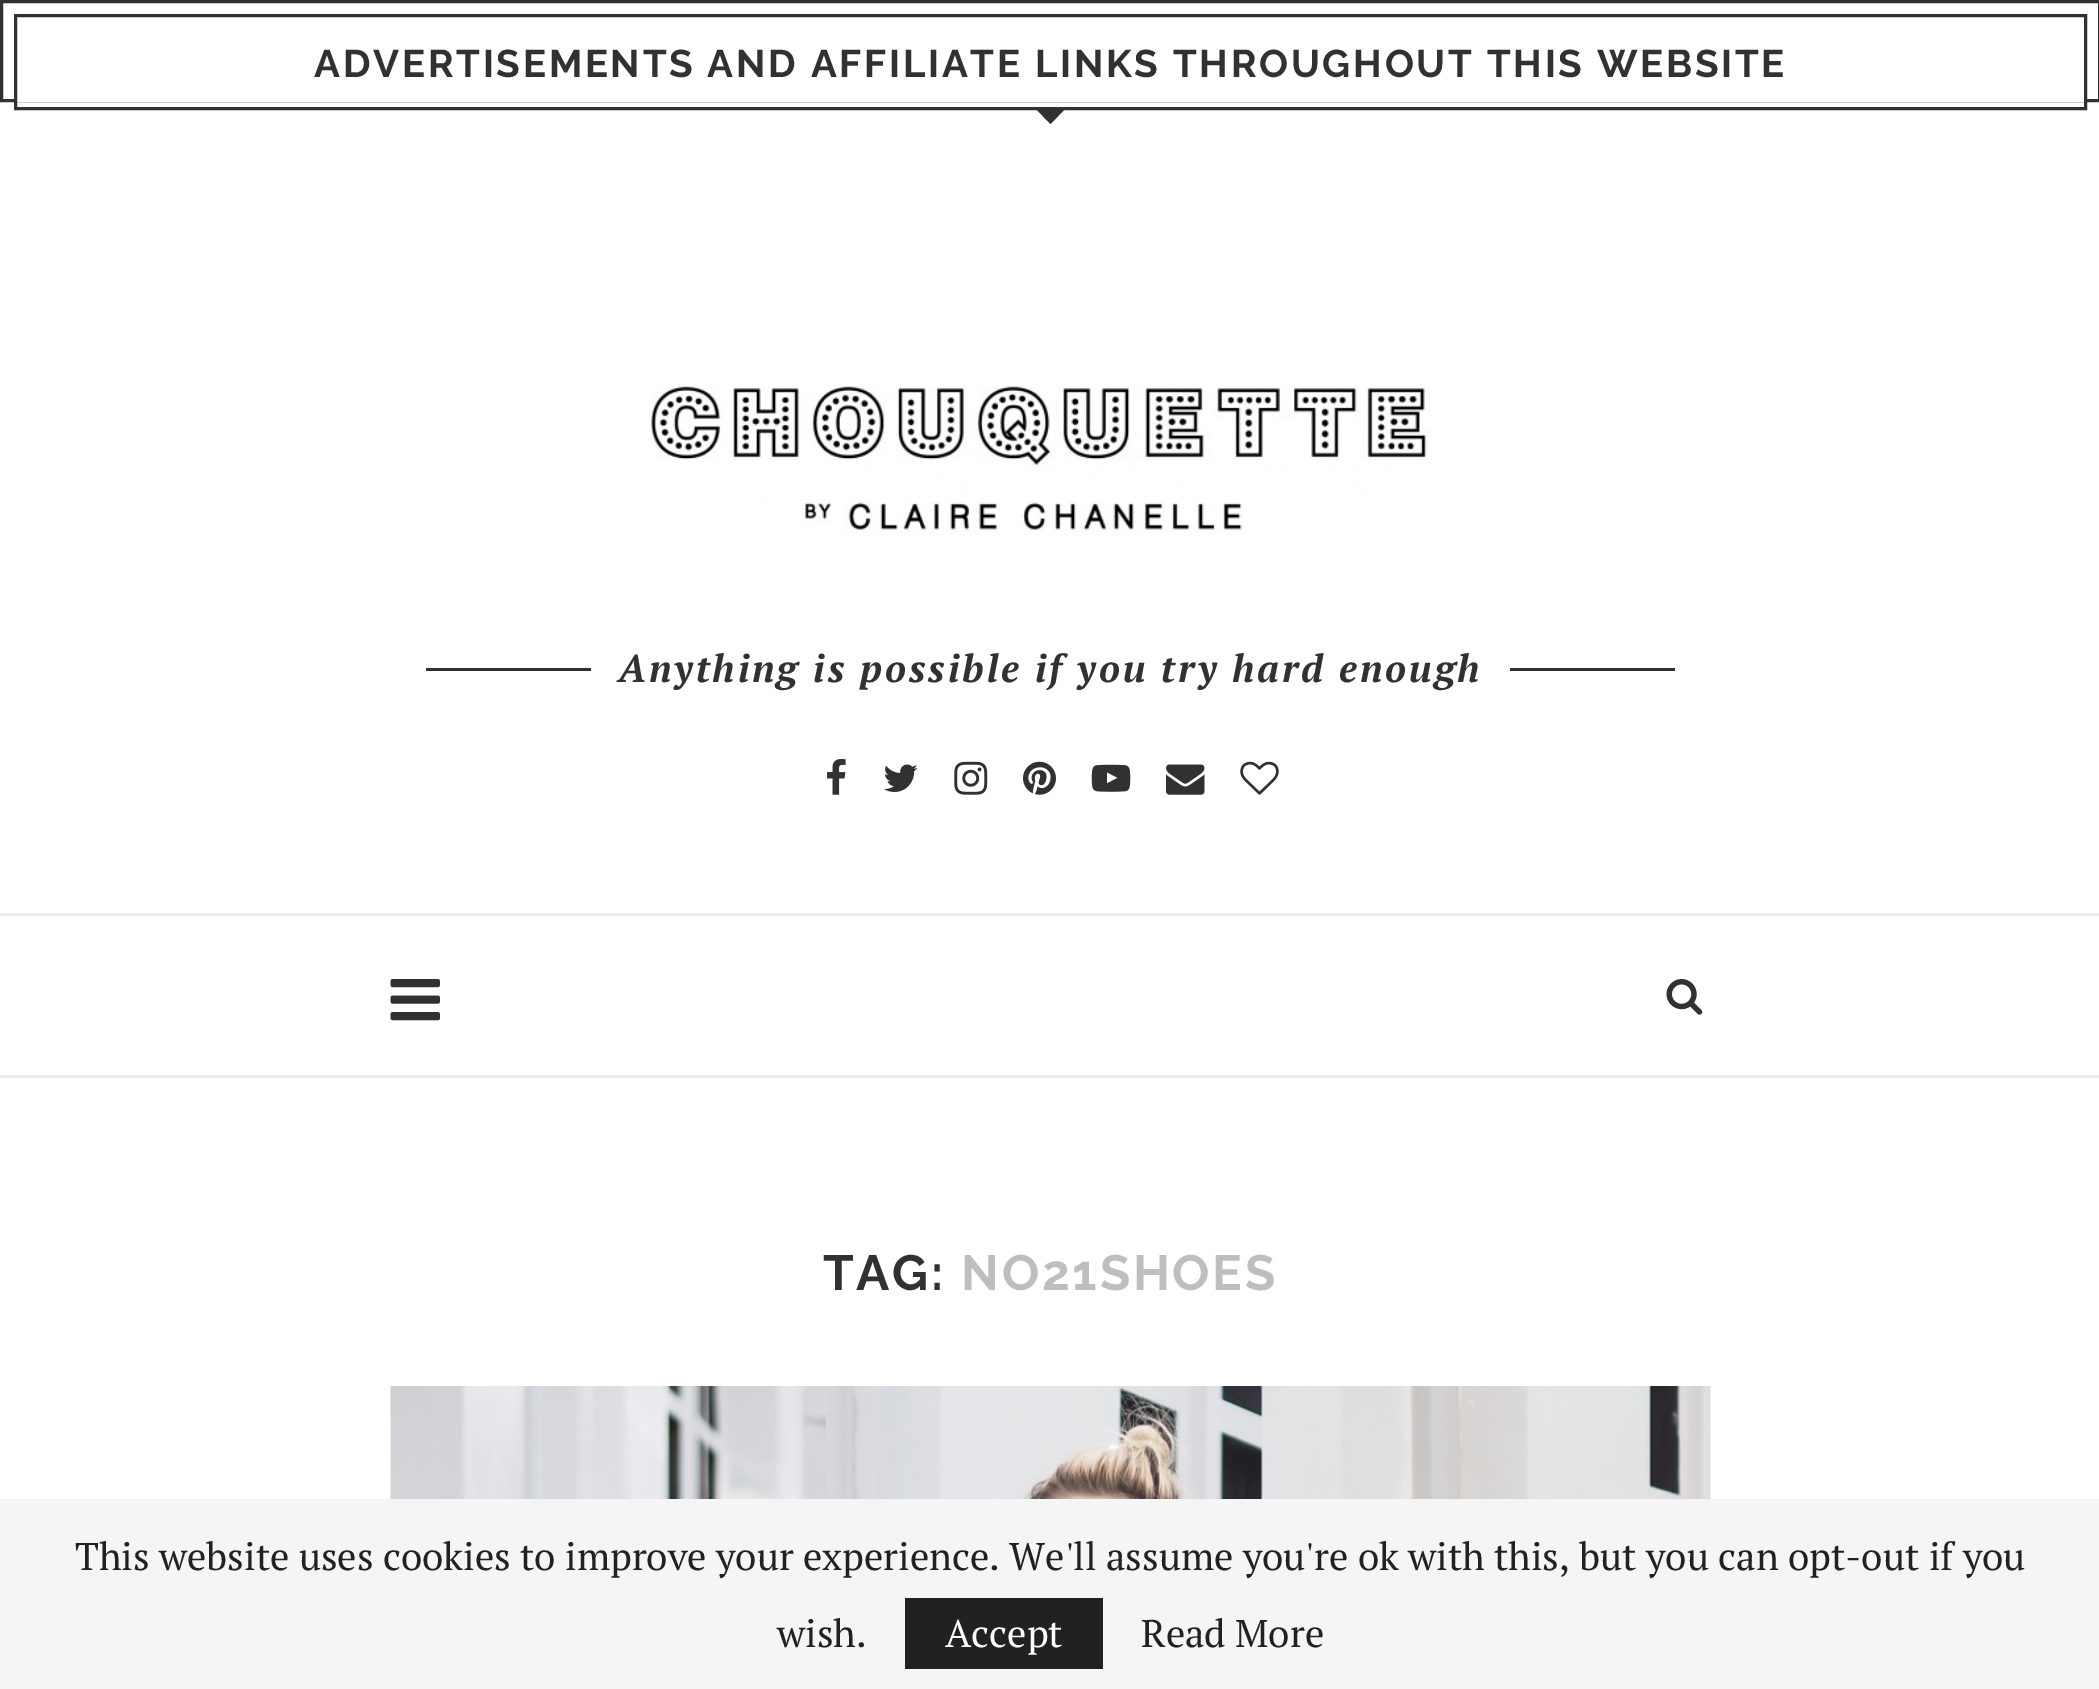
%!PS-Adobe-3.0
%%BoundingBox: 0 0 2099 1689
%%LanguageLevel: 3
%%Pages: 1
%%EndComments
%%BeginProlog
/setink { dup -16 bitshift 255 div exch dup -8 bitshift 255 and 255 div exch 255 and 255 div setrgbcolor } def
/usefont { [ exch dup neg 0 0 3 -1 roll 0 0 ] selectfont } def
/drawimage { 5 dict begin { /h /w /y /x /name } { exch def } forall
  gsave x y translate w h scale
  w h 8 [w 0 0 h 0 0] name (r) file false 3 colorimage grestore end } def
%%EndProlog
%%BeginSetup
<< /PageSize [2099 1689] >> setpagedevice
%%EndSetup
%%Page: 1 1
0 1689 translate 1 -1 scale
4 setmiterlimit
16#FFFFFF setink
0 0 2099 1689 rectfill
16#313131 setink
3 setlinewidth
1.5 1.5 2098 99 rectstroke
16#FFFFFF setink
17 99 2067 3 rectfill
16#313131 setink
15.5 15.5 2070 93 rectstroke
/Raleway-Bold 38.5 usefont
314 77 moveto 2.75 0 (ADVERTISEMENTS AND AFFILIATE LINKS THROUGHOUT THIS WEBSITE) ashow
1034 107 moveto 1067 107 lineto 1050.5 124 lineto closepath fill
(img1.raw) 651 386 783 149 drawimage
426 668 165 3 rectfill
/PTSerif-BoldItalic 38.5 usefont
618 682 moveto 2.75 0 (Anything is possible if you try hard enough) ashow
1510 668 165 3 rectfill
(img2.raw) 827 759 19 36 drawimage
(img3.raw) 883 764 35 28 drawimage
(img4.raw) 954 761 34 34 drawimage
(img5.raw) 1023 761 33 34 drawimage
(img6.raw) 1091 764 40 28 drawimage
(img7.raw) 1166 764 39 31 drawimage
(img8.raw) 1240 761 39 34 drawimage
16#ECECEC setink
0 913 2099 3 rectfill
0 1075 2099 3 rectfill
(img9.raw) 390 979 50 42 drawimage
(img10.raw) 1666 979 37 36 drawimage
/Raleway-Bold 49.5 usefont
16#313131 setink
823 1290 moveto 2.75 0 (TAG:) ashow
16#BEBEBE setink
961 1290 moveto 2.75 0 (NO21SHOES) ashow
(img11.raw) 390 1386 1321 113 drawimage
16#F5F5F5 setink
0 1499 2099 190 rectfill
/PTSerif-Regular 38.5 usefont
16#212121 setink
75 1570 moveto (This website uses cookies to improve your experience. We'll assume you're ok with this, but you can opt-out if you) show
777 1647 moveto (wish.) show
905 1598 198 71 rectfill
16#FFFFFF setink
945 1647 moveto (Accept) show
16#212121 setink
1141 1647 moveto (Read More) show
showpage
%%EOF
